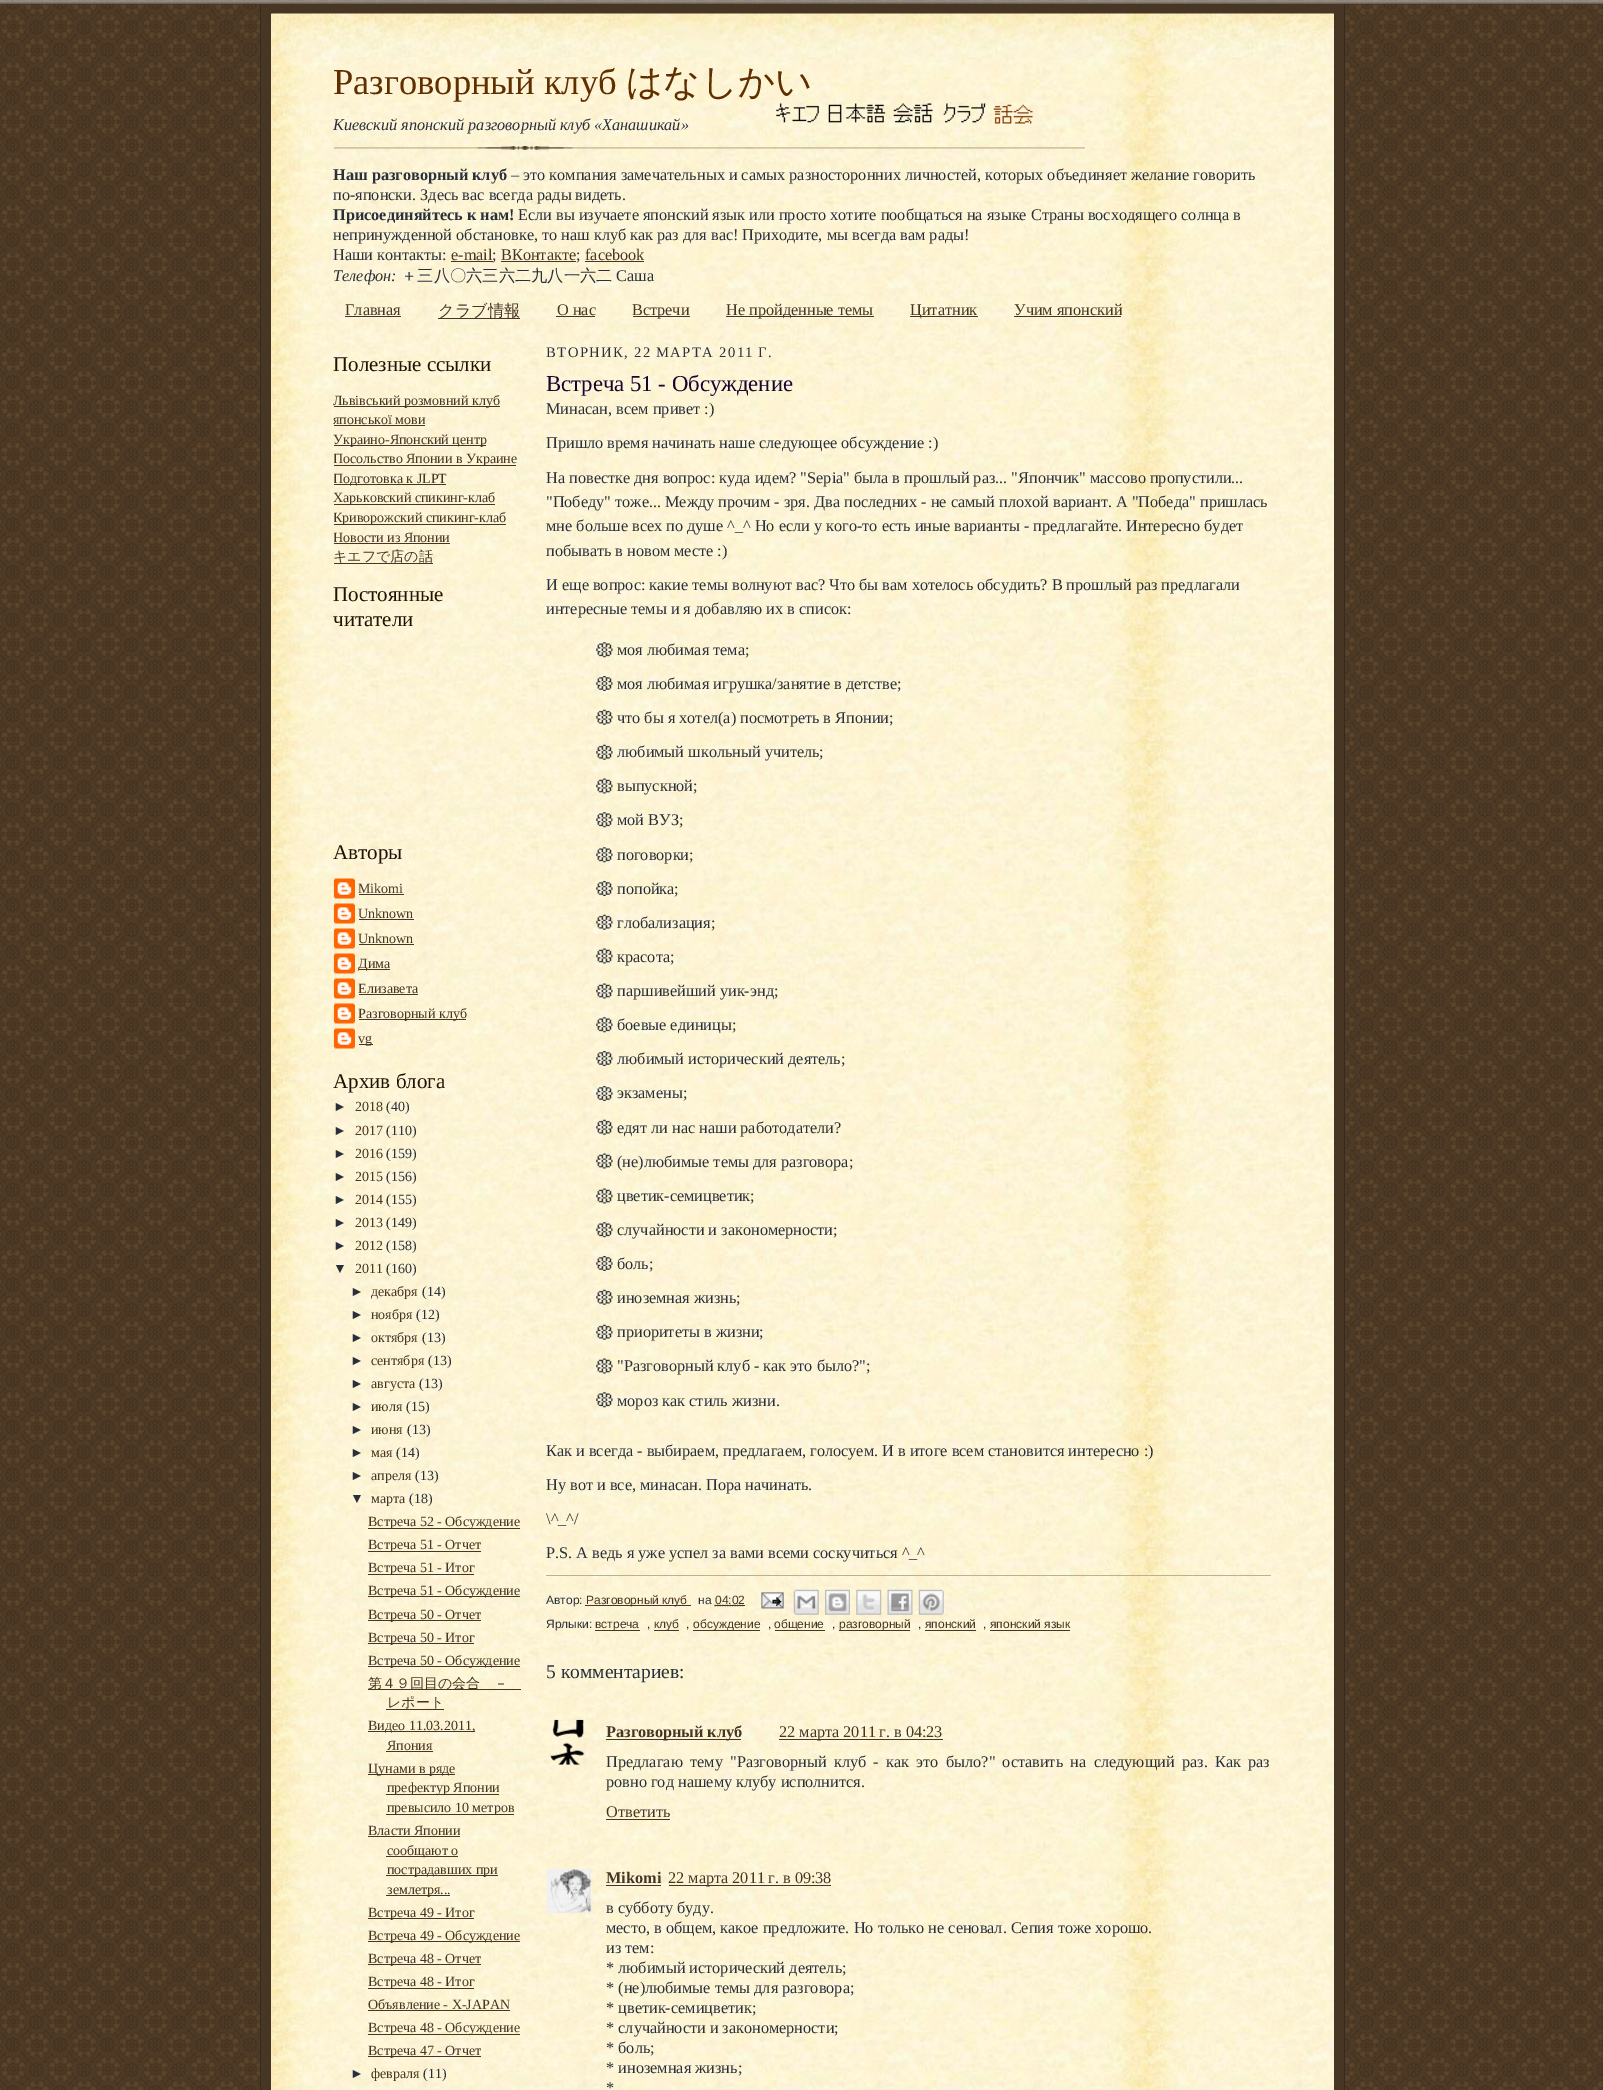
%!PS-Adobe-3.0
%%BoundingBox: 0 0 1603 2090
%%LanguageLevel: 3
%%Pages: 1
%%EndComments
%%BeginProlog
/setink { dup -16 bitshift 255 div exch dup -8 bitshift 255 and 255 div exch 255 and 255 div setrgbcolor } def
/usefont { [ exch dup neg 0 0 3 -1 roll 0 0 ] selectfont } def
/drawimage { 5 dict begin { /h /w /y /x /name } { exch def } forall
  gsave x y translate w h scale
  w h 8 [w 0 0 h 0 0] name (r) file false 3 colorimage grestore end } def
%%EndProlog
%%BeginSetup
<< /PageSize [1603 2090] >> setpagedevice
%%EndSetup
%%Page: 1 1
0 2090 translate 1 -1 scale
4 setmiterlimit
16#FFFFFF setink
0 0 1603 2090 rectfill
(img1.raw) 0 0 1603 2090 drawimage
(img2.raw) 0 0 1603 4 drawimage
[
    [261 4 1083 2086 16#473624]
    [1344 4 1 2086 16#332A24]
    [260 4 1 2086 16#332A24]
] { aload pop setink rectfill } forall
(img3.raw) 271 13 1063 62 drawimage
(img4.raw) 271 57 1063 2033 drawimage
(img5.raw) 333 146 752 4 drawimage
(img6.raw) 776 102 257 22 drawimage
/LiberationSerif-Regular 36.5 usefont
16#612E00 setink
333 94 moveto (Разговорный клуб) show
/WenQuanYiZenHei-Medium 36.5 usefont
626 94 moveto (はなしかい) show
/LiberationSerif-Italic 16.25 usefont
16#29303B setink
333 130 moveto (Киевский японский разговорный клуб «Ханашикай») show
/LiberationSerif-Bold 16.25 usefont
333 180 moveto (Наш разговорный клуб) show
/LiberationSerif-Regular 16.25 usefont
511 180 moveto (– это компания замечательных и самых разносторонних личностей, которых объединяет желание говорить) show
333 200 moveto (по-японски. Здесь вас всегда рады видеть.) show
/LiberationSerif-Bold 16.25 usefont
333 220 moveto (Присоединяйтесь к нам!) show
/LiberationSerif-Regular 16.25 usefont
[
    [(Если вы изучаете японский язык или просто хотите пообщаться на языке Страны восходящего солнца в) 518 220]
    [(непринужденной обстановке, то наш клуб как раз для вас! Приходите, мы всегда вам рады!) 333 240]
    [(Наши контакты:) 333 260]
] { aload pop moveto show } forall
16#473624 setink
451 260 moveto (e-mail) show
451 261 42 1 rectfill
16#29303B setink
492 260 moveto (;) show
16#473624 setink
501 260 moveto (ВКонтакте) show
501 261 75 1 rectfill
16#29303B setink
576 260 moveto (;) show
16#473624 setink
585 260 moveto (facebook) show
585 261 59 1 rectfill
/LiberationSerif-Italic 16.25 usefont
16#29303B setink
333 281 moveto (Телефон:) show
/WenQuanYiZenHei-Medium 16.25 usefont
401 281 moveto (＋三八〇六三六二九八一六二) show
/LiberationSerif-Regular 16.25 usefont
616 281 moveto (Саша) show
16#473624 setink
345 315 moveto (Главная) show
345 316 56 1 rectfill
438 318 82 1 rectfill
/WenQuanYiZenHei-Medium 16.25 usefont
438 316 moveto (クラブ情報) show
/LiberationSerif-Regular 16.25 usefont
557 315 moveto (О нас) show
556 316 39 1 rectfill
633 316 57 1 rectfill
632 315 moveto (Встречи) show
726 316 148 1 rectfill
726 315 moveto (Не пройденные темы) show
910 316 68 1 rectfill
910 315 moveto (Цитатник) show
1014 315 moveto (Учим японский) show
1014 316 107 1 rectfill
/LiberationSerif-Regular 21 usefont
16#211104 setink
333 371 moveto (Полезные ссылки) show
16#473624 setink
334 406 166 1 rectfill
/LiberationSerif-Regular 14 usefont
333 405 moveto (Львівський розмовний клуб) show
333 424 moveto (японської мови) show
334 425 91 1 rectfill
334 445 152 1 rectfill
333 444 moveto (Украино-Японский центр) show
334 465 182 1 rectfill
gsave
334 335 187 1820 rectclip
333 463 moveto (Посольство Японии в Украине) show
grestore
334 484 112 1 rectfill
gsave
334 335 187 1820 rectclip
333 483 moveto (Подготовка к JLPT) show
grestore
334 504 161 1 rectfill
333 502 moveto (Харьковский спикинг-клаб) show
334 524 172 1 rectfill
gsave
334 335 187 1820 rectclip
333 522 moveto (Криворожский спикинг-клаб) show
333 542 moveto (Новости из Японии) show
grestore
334 543 116 1 rectfill
/WenQuanYiZenHei-Medium 14 usefont
333 561 moveto (キエフで店の話) show
334 563 99 1 rectfill
/LiberationSerif-Regular 21 usefont
16#211104 setink
[
    [(Постоянные) 333 601]
    [(читатели) 333 626]
    [(Авторы) 333 859]
] { aload pop moveto show } forall
(img7.raw) 333 878 22 21 drawimage
/LiberationSerif-Regular 14 usefont
16#473624 setink
358 893 moveto (Mikomi) show
359 894 45 1 rectfill
(img8.raw) 333 903 22 21 drawimage
358 918 moveto (Unknown) show
359 919 55 1 rectfill
(img9.raw) 333 928 22 21 drawimage
358 943 moveto (Unknown) show
359 944 55 1 rectfill
(img10.raw) 333 953 22 21 drawimage
359 969 31 1 rectfill
358 968 moveto (Дима) show
(img11.raw) 333 978 22 21 drawimage
358 993 moveto (Елизавета) show
359 994 59 1 rectfill
(img12.raw) 333 1003 22 21 drawimage
359 1019 107 1 rectfill
358 1018 moveto (Разговорный клуб) show
(img13.raw) 333 1028 22 21 drawimage
359 1044 14 1 rectfill
358 1043 moveto (vg) show
/LiberationSerif-Regular 21 usefont
16#211104 setink
333 1088 moveto (Архив блога) show
/LiberationSans-Regular 14 usefont
16#29303B setink
333 1111 moveto (►) show
/LiberationSerif-Regular 14 usefont
16#473624 setink
355 1111 moveto (2018) show
16#29303B setink
386 1111 moveto (\(40\)) show
/LiberationSans-Regular 14 usefont
333 1135 moveto (►) show
/LiberationSerif-Regular 14 usefont
16#473624 setink
355 1135 moveto (2017) show
16#29303B setink
386 1135 moveto (\(110\)) show
/LiberationSans-Regular 14 usefont
333 1158 moveto (►) show
/LiberationSerif-Regular 14 usefont
16#473624 setink
355 1158 moveto (2016) show
16#29303B setink
386 1158 moveto (\(159\)) show
/LiberationSans-Regular 14 usefont
333 1181 moveto (►) show
/LiberationSerif-Regular 14 usefont
16#473624 setink
355 1181 moveto (2015) show
16#29303B setink
386 1181 moveto (\(156\)) show
/LiberationSans-Regular 14 usefont
333 1204 moveto (►) show
/LiberationSerif-Regular 14 usefont
16#473624 setink
355 1204 moveto (2014) show
16#29303B setink
386 1204 moveto (\(155\)) show
/LiberationSans-Regular 14 usefont
333 1227 moveto (►) show
/LiberationSerif-Regular 14 usefont
16#473624 setink
355 1227 moveto (2013) show
16#29303B setink
386 1227 moveto (\(149\)) show
/LiberationSans-Regular 14 usefont
333 1250 moveto (►) show
/LiberationSerif-Regular 14 usefont
16#473624 setink
355 1250 moveto (2012) show
16#29303B setink
386 1250 moveto (\(158\)) show
/LiberationSans-Regular 14 usefont
333 1273 moveto (▼) show
/LiberationSerif-Regular 14 usefont
16#473624 setink
355 1273 moveto (2011) show
16#29303B setink
386 1273 moveto (\(160\)) show
/LiberationSans-Regular 14 usefont
350 1296 moveto (►) show
/LiberationSerif-Regular 14 usefont
16#473624 setink
371 1296 moveto (декабря) show
16#29303B setink
422 1296 moveto (\(14\)) show
/LiberationSans-Regular 14 usefont
350 1319 moveto (►) show
/LiberationSerif-Regular 14 usefont
16#473624 setink
371 1319 moveto (ноября) show
16#29303B setink
416 1319 moveto (\(12\)) show
/LiberationSans-Regular 14 usefont
350 1342 moveto (►) show
/LiberationSerif-Regular 14 usefont
16#473624 setink
371 1342 moveto (октября) show
16#29303B setink
422 1342 moveto (\(13\)) show
/LiberationSans-Regular 14 usefont
350 1365 moveto (►) show
/LiberationSerif-Regular 14 usefont
16#473624 setink
371 1365 moveto (сентября) show
16#29303B setink
428 1365 moveto (\(13\)) show
/LiberationSans-Regular 14 usefont
350 1388 moveto (►) show
/LiberationSerif-Regular 14 usefont
16#473624 setink
371 1388 moveto (августа) show
16#29303B setink
419 1388 moveto (\(13\)) show
/LiberationSans-Regular 14 usefont
350 1411 moveto (►) show
/LiberationSerif-Regular 14 usefont
16#473624 setink
371 1411 moveto (июля) show
16#29303B setink
406 1411 moveto (\(15\)) show
/LiberationSans-Regular 14 usefont
350 1434 moveto (►) show
/LiberationSerif-Regular 14 usefont
16#473624 setink
371 1434 moveto (июня) show
16#29303B setink
407 1434 moveto (\(13\)) show
/LiberationSans-Regular 14 usefont
350 1457 moveto (►) show
/LiberationSerif-Regular 14 usefont
16#473624 setink
371 1457 moveto (мая) show
16#29303B setink
396 1457 moveto (\(14\)) show
/LiberationSans-Regular 14 usefont
350 1480 moveto (►) show
/LiberationSerif-Regular 14 usefont
16#473624 setink
371 1480 moveto (апреля) show
16#29303B setink
415 1480 moveto (\(13\)) show
/LiberationSans-Regular 14 usefont
350 1503 moveto (▼) show
/LiberationSerif-Regular 14 usefont
16#473624 setink
371 1503 moveto (марта) show
16#29303B setink
409 1503 moveto (\(18\)) show
16#473624 setink
368 1528 152 1 rectfill
368 1526 moveto (Встреча 52 - Обсуждение) show
368 1551 113 1 rectfill
368 1549 moveto (Встреча 51 - Отчет) show
368 1574 106 1 rectfill
368 1572 moveto (Встреча 51 - Итог) show
368 1596 152 1 rectfill
368 1595 moveto (Встреча 51 - Обсуждение) show
368 1620 113 1 rectfill
368 1619 moveto (Встреча 50 - Отчет) show
368 1643 106 1 rectfill
368 1642 moveto (Встреча 50 - Итог) show
368 1666 152 1 rectfill
368 1665 moveto (Встреча 50 - Обсуждение) show
368 1689 153 1 rectfill
/WenQuanYiZenHei-Medium 14 usefont
368 1688 moveto (第４９回目の会合　－) show
387 1707 moveto (レポート) show
386 1709 58 1 rectfill
368 1731 107 1 rectfill
/LiberationSerif-Regular 14 usefont
368 1730 moveto (Видео 11.03.2011,) show
387 1750 moveto (Япония) show
386 1751 47 1 rectfill
368 1774 87 1 rectfill
368 1773 moveto (Цунами в ряде) show
386 1794 113 1 rectfill
387 1792 moveto (префектур Японии) show
386 1814 128 1 rectfill
387 1812 moveto (превысило 10 метров) show
368 1835 moveto (Власти Японии) show
368 1836 92 1 rectfill
386 1856 72 1 rectfill
387 1855 moveto (сообщают о) show
386 1875 112 1 rectfill
387 1874 moveto (пострадавших при) show
386 1895 64 1 rectfill
387 1894 moveto (землетря...) show
368 1918 106 1 rectfill
368 1917 moveto (Встреча 49 - Итог) show
368 1941 152 1 rectfill
368 1940 moveto (Встреча 49 - Обсуждение) show
368 1964 113 1 rectfill
368 1963 moveto (Встреча 48 - Отчет) show
368 1988 106 1 rectfill
368 1986 moveto (Встреча 48 - Итог) show
368 2009 moveto (Объявление - X-JAPAN) show
368 2010 142 1 rectfill
368 2034 152 1 rectfill
368 2032 moveto (Встреча 48 - Обсуждение) show
368 2056 113 1 rectfill
368 2055 moveto (Встреча 47 - Отчет) show
/LiberationSans-Regular 14 usefont
16#29303B setink
350 2078 moveto (►) show
/LiberationSerif-Regular 14 usefont
16#473624 setink
371 2078 moveto (февраля) show
16#29303B setink
423 2078 moveto (\(11\)) show
/LiberationSerif-Regular 14.6 usefont
546 357 moveto -0.5 0 32 1.45 0 (ВТОРНИК, 22 МАРТА 2011 Г.) awidthshow
/LiberationSerif-Regular 22.75 usefont
16#1B0431 setink
546 391 moveto (Встреча 51 - Обсуждение) show
/LiberationSerif-Regular 16.25 usefont
16#29303B setink
[
    [(Минасан, всем привет :\)) 546 414]
    [(Пришло время начинать наше следующее обсуждение :\)) 546 448]
    [(На повестке дня вопрос: куда идем? "Sepia" была в прошлый раз... "Япончик" массово пропустили...) 546 483]
    [("Победу" тоже... Между прочим - зря. Два последних - не самый плохой вариант. А "Победа" пришлась) 546 507]
    [(мне больше всех по душе ^_^ Но если у кого-то есть иные варианты - предлагайте. Интересно будет) 546 531]
    [(побывать в новом месте :\)) 546 556]
    [(И еще вопрос: какие темы волнуют вас? Что бы вам хотелось обсудить? В прошлый раз предлагали) 546 590]
    [(интересные темы и я добавляю их в список:) 546 614]
] { aload pop moveto show } forall
(img14.raw) 596 642 17 16 drawimage
617 655 moveto (моя любимая тема;) show
(img15.raw) 596 676 17 15 drawimage
617 689 moveto (моя любимая игрушка/занятие в детстве;) show
(img16.raw) 596 709 17 16 drawimage
617 723 moveto (что бы я хотел\(а\) посмотреть в Японии;) show
(img17.raw) 596 744 17 16 drawimage
617 757 moveto (любимый школьный учитель;) show
(img18.raw) 596 778 17 16 drawimage
617 791 moveto (выпускной;) show
(img19.raw) 596 812 17 16 drawimage
617 825 moveto (мой ВУЗ;) show
(img20.raw) 596 847 17 16 drawimage
617 860 moveto (поговорки;) show
(img21.raw) 596 881 17 15 drawimage
617 894 moveto (попойка;) show
(img22.raw) 596 914 17 16 drawimage
617 928 moveto (глобализация;) show
(img23.raw) 596 948 17 16 drawimage
617 962 moveto (красота;) show
(img24.raw) 596 983 17 16 drawimage
617 996 moveto (паршивейший уик-энд;) show
(img25.raw) 596 1017 17 16 drawimage
617 1030 moveto (боевые единицы;) show
(img26.raw) 596 1051 17 15 drawimage
617 1064 moveto (любимый исторический деятель;) show
(img27.raw) 596 1086 17 15 drawimage
617 1098 moveto (экзамены;) show
(img28.raw) 596 1119 17 16 drawimage
617 1133 moveto (едят ли нас наши работодатели?) show
(img29.raw) 596 1153 17 16 drawimage
617 1167 moveto (\(не\)любимые темы для разговора;) show
(img30.raw) 596 1188 17 16 drawimage
617 1201 moveto (цветик-семицветик;) show
(img31.raw) 596 1222 17 16 drawimage
617 1235 moveto (случайности и закономерности;) show
(img32.raw) 596 1256 17 15 drawimage
617 1269 moveto (боль;) show
(img33.raw) 596 1289 17 16 drawimage
617 1303 moveto (иноземная жизнь;) show
(img34.raw) 596 1324 17 16 drawimage
617 1337 moveto (приоритеты в жизни;) show
(img35.raw) 596 1358 17 16 drawimage
617 1371 moveto ("Разговорный клуб - как это было?";) show
(img36.raw) 596 1392 17 16 drawimage
[
    [(мороз как стиль жизни.) 617 1406]
    [(Как и всегда - выбираем, предлагаем, голосуем. И в итоге всем становится интересно :\)) 546 1456]
    [(Ну вот и все, минасан. Пора начинать.) 546 1490]
    [(\\^_^/) 546 1524]
    [(P.S. А ведь я уже успел за вами всеми соскучиться ^_^) 546 1558]
] { aload pop moveto show } forall
16#BFB186 setink
546 1575 725 1 rectfill
/LiberationSans-Regular 12 usefont
16#29303B setink
546 1604 moveto (Автор:) show
16#473624 setink
585 1605 106 1 rectfill
586 1604 moveto (Разговорный клуб) show
16#29303B setink
698 1604 moveto (на) show
16#473624 setink
1.2 setlinewidth
[1.25 1.25] 0 setdash
714.5 1605.5 moveto 744.5 1605.5 lineto stroke
715 1604 moveto (04:02) show
715 1605 30 1 rectfill
(img37.raw) 761 1592 23 17 drawimage
(img38.raw) 793 1589 26 26 drawimage
(img39.raw) 825 1589 25 26 drawimage
(img40.raw) 856 1589 26 26 drawimage
(img41.raw) 887 1589 26 26 drawimage
(img42.raw) 918 1589 26 26 drawimage
16#29303B setink
546 1628 moveto (Ярлыки:) show
16#473624 setink
595 1630 45 1 rectfill
595 1628 moveto (встреча) show
16#29303B setink
647 1628 moveto (,) show
16#473624 setink
654 1630 25 1 rectfill
654 1628 moveto (клуб) show
16#29303B setink
686 1628 moveto (,) show
16#473624 setink
693 1630 67 1 rectfill
693 1628 moveto (обсуждение) show
16#29303B setink
768 1628 moveto (,) show
16#473624 setink
775 1630 50 1 rectfill
774 1628 moveto (общение) show
16#29303B setink
832 1628 moveto (,) show
16#473624 setink
839 1630 71 1 rectfill
839 1628 moveto (разговорный) show
16#29303B setink
918 1628 moveto (,) show
16#473624 setink
925 1630 51 1 rectfill
925 1628 moveto (японский) show
16#29303B setink
983 1628 moveto (,) show
16#473624 setink
990 1630 80 1 rectfill
990 1628 moveto (японский язык) show
/LiberationSerif-Regular 19.5 usefont
16#29303B setink
546 1678 moveto (5 комментариев:) show
(img43.raw) 550 1719 35 46 drawimage
16#473624 setink
606 1739 135 1 rectfill
/LiberationSerif-Bold 16.25 usefont
606 1737 moveto (Разговорный клуб) show
779 1739 164 1 rectfill
/LiberationSerif-Regular 16.25 usefont
779 1737 moveto (22 марта 2011 г. в 04:23) show
16#29303B setink
606 1767 moveto 3.25 0 32 (Предлагаю тему "Разговорный клуб - как это было?" оставить на следующий раз. Как раз) widthshow
606 1787 moveto (ровно год нашему клубу исполнится.) show
16#473624 setink
606 1817 moveto (Ответить) show
606 1819 64 1 rectfill
(img44.raw) 546 1868 46 46 drawimage
/LiberationSerif-Bold 16.25 usefont
606 1883 moveto (Mikomi) show
606 1885 55 1 rectfill
669 1885 162 1 rectfill
/LiberationSerif-Regular 16.25 usefont
668 1883 moveto (22 марта 2011 г. в 09:38) show
16#29303B setink
[
    [(в субботу буду.) 606 1913]
    [(место, в общем, какое предложите. Но только не сеновал. Сепия тоже хорошо.) 606 1933]
    [(из тем:) 606 1953]
    [(* любимый исторический деятель;) 606 1973]
    [(* \(не\)любимые темы для разговора;) 606 1993]
    [(* цветик-семицветик;) 606 2013]
    [(* случайности и закономерности;) 606 2033]
    [(* боль;) 606 2053]
    [(* иноземная жизнь;) 606 2073]
    [(*) 606 2093]
] { aload pop moveto show } forall
showpage
%%EOF
